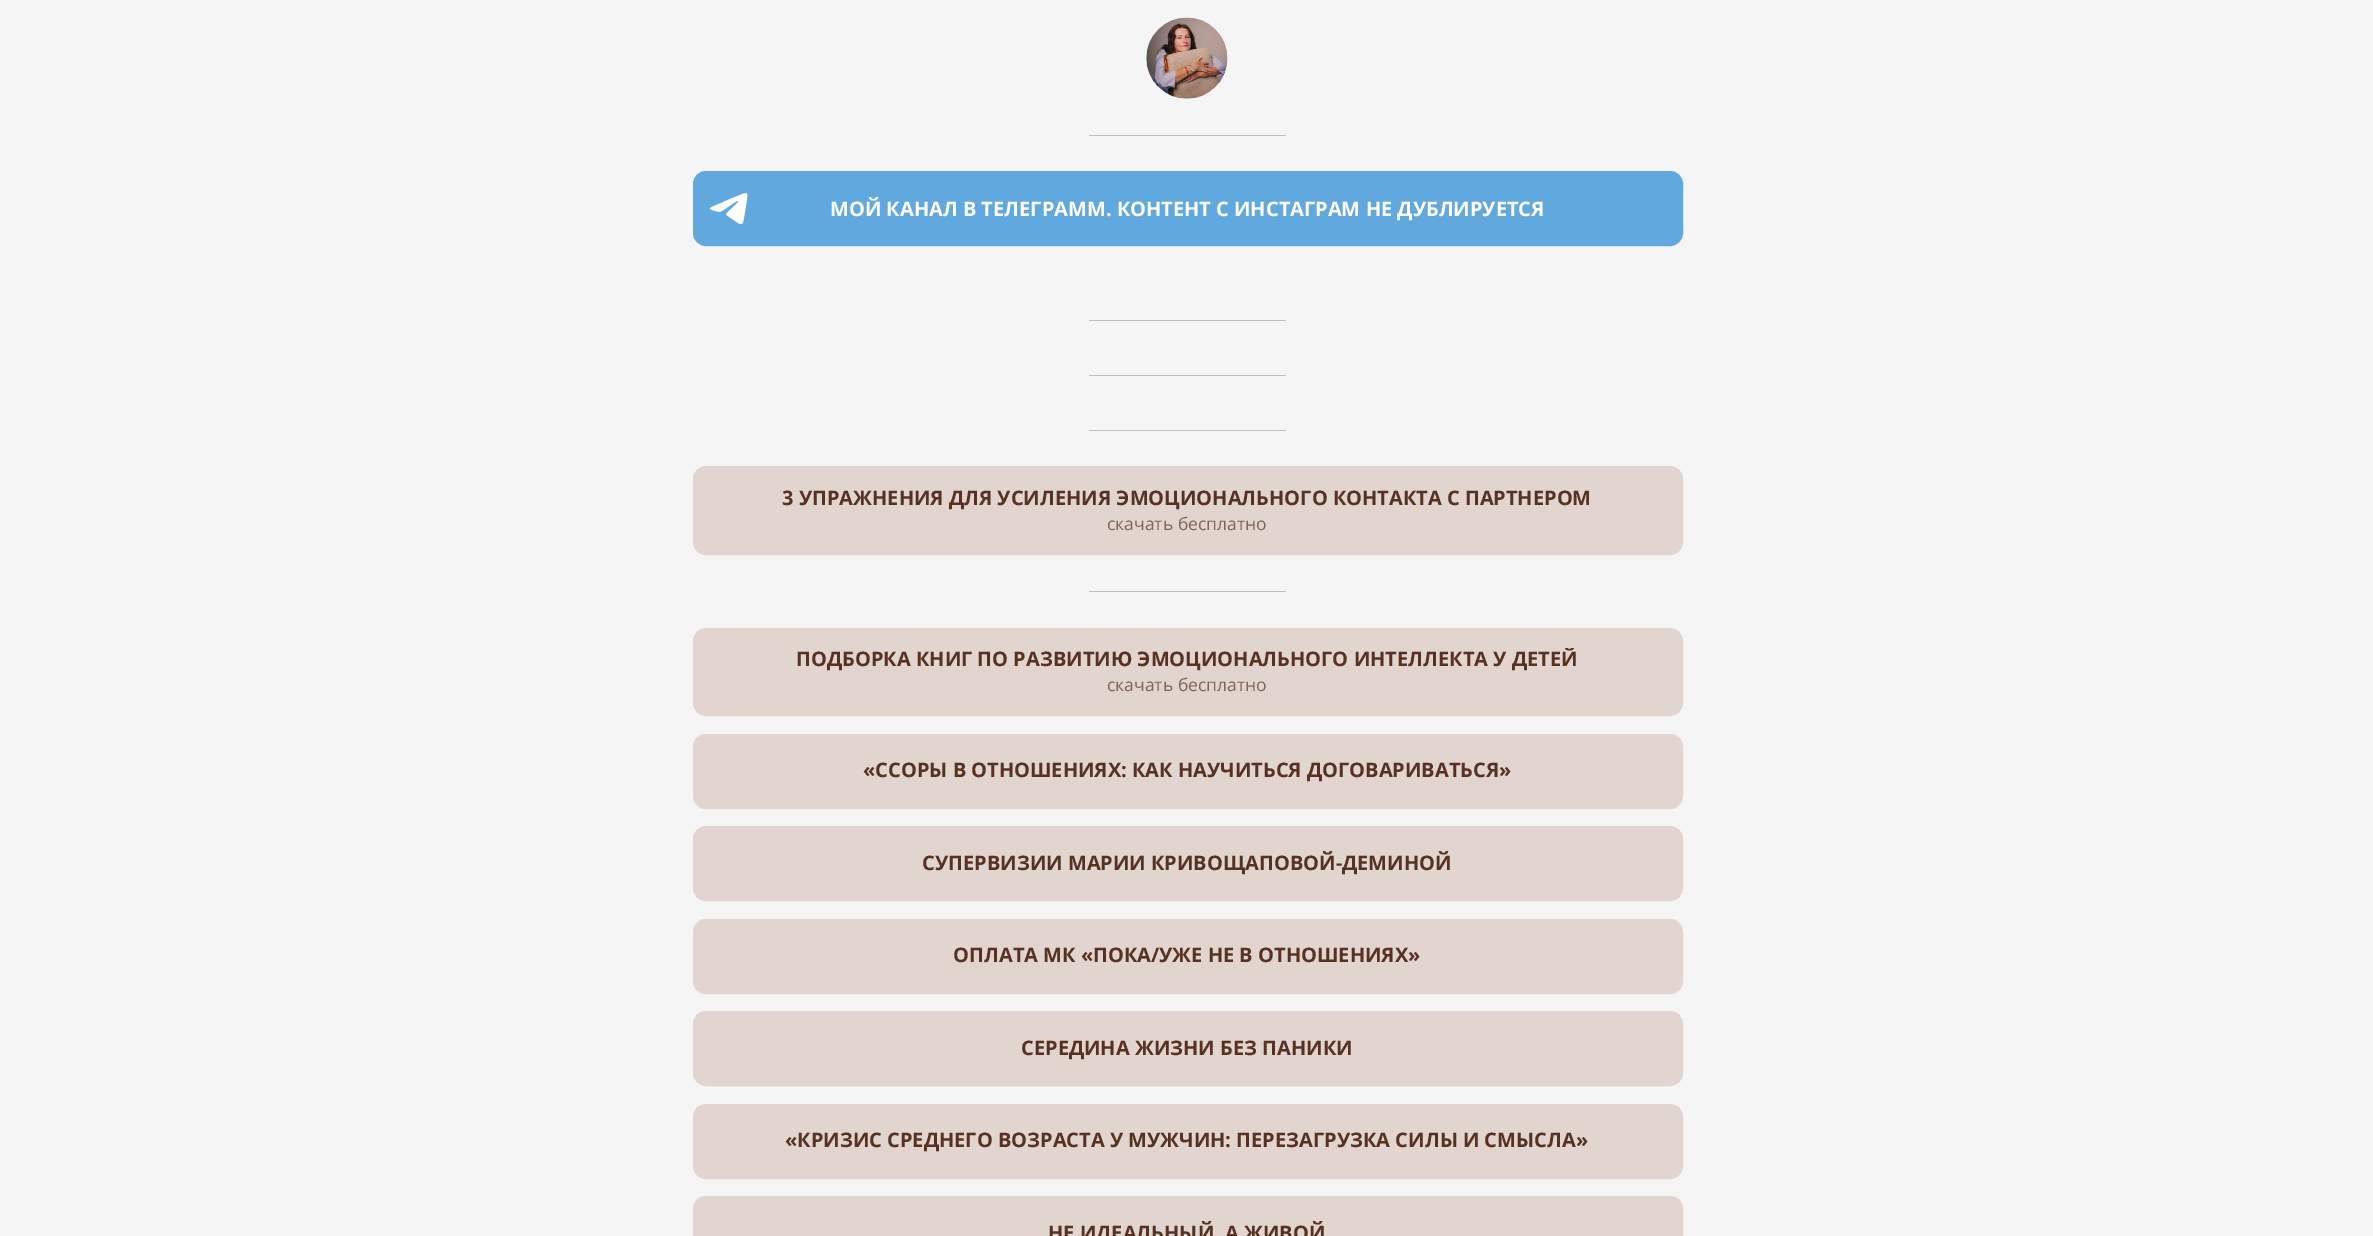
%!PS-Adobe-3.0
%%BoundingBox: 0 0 2373 1236
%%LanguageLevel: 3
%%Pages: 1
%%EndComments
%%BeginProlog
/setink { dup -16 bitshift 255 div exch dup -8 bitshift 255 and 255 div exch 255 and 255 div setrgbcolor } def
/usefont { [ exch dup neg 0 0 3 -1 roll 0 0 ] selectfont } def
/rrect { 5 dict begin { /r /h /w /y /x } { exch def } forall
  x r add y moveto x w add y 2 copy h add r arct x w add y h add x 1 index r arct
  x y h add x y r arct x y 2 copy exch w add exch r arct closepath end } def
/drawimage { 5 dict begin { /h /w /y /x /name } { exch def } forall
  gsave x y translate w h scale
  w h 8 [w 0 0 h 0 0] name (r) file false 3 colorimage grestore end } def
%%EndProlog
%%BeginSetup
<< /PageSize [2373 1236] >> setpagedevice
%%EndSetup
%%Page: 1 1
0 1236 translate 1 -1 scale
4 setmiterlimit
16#F5F5F5 setink
0 0 2373 1236 rectfill
(img1.raw) 1146 17 82 82 drawimage
16#C6BBB6 setink
1089 135 197 1 rectfill
16#61A8DE setink
694.5 172.5 987 72 11.5 rrect gsave fill grestore
3 setlinewidth
stroke
(img2.raw) 710 193 38 32 drawimage
/OpenSans-Bold 20 usefont
16#FFFFFF setink
830 216 moveto (МОЙ КАНАЛ В ТЕЛЕГРАММ. КОНТЕНТ С ИНСТАГРАМ НЕ ДУБЛИРУЕТСЯ) show
[
    [1089 320 197 1 16#C6BBB6]
    [1089 375 197 1 16#C6BBB6]
    [1089 430 197 1 16#C6BBB6]
] { aload pop setink rectfill } forall
16#E2D4CE setink
694.5 467.5 987 86 11.5 rrect gsave fill grestore
stroke
16#573222 setink
782 505 moveto (3 УПРАЖНЕНИЯ ДЛЯ УСИЛЕНИЯ ЭМОЦИОНАЛЬНОГО КОНТАКТА С ПАРТНЕРОМ) show
/OpenSans-Regular 17.5 usefont
16#816356 setink
1107 530 moveto (скачать бесплатно) show
16#C6BBB6 setink
1089 591 197 1 rectfill
16#E2D4CE setink
694.5 629.5 987 85 11.5 rrect gsave fill grestore
stroke
gsave
713 648 950 23 rectclip
/OpenSans-Bold 20 usefont
16#573222 setink
796 666 moveto (ПОДБОРКА КНИГ ПО РАЗВИТИЮ ЭМОЦИОНАЛЬНОГО ИНТЕЛЛЕКТА У ДЕТЕЙ) show
grestore
16#816356 setink
1107 691 moveto (скачать бесплатно) show
16#E2D4CE setink
694.5 735.5 987 72 11.5 rrect gsave fill grestore
stroke
/OpenSans-Bold 20 usefont
16#573222 setink
863 777 moveto («ССОРЫ В ОТНОШЕНИЯХ: КАК НАУЧИТЬСЯ ДОГОВАРИВАТЬСЯ») show
16#E2D4CE setink
694.5 827.5 987 72 11.5 rrect gsave fill grestore
stroke
16#573222 setink
922 870 moveto (СУПЕРВИЗИИ МАРИИ КРИВОЩАПОВОЙ-ДЕМИНОЙ) show
16#E2D4CE setink
694.5 920.5 987 72 11.5 rrect gsave fill grestore
stroke
16#573222 setink
953 962 moveto (ОПЛАТА МК «ПОКА/УЖЕ НЕ В ОТНОШЕНИЯХ») show
16#E2D4CE setink
694.5 1012.5 987 72 11.5 rrect gsave fill grestore
stroke
16#573222 setink
1021 1055 moveto (СЕРЕДИНА ЖИЗНИ БЕЗ ПАНИКИ) show
16#E2D4CE setink
694.5 1105.5 987 72 11.5 rrect gsave fill grestore
stroke
16#573222 setink
785 1147 moveto («КРИЗИС СРЕДНЕГО ВОЗРАСТА У МУЖЧИН: ПЕРЕЗАГРУЗКА СИЛЫ И СМЫСЛА») show
16#E2D4CE setink
706 1196 moveto 1670 1196 lineto 1677 1196 1683 1202 1683 1209 curveto 1683 1236 lineto 693 1236 lineto 693 1209 lineto 693 1202 699 1196 706 1196 curveto closepath fill
694.5 1197.5 987 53 11.5 rrect stroke
16#573222 setink
1048 1240 moveto (НЕ ИДЕАЛЬНЫЙ, А ЖИВОЙ) show
showpage
%%EOF
